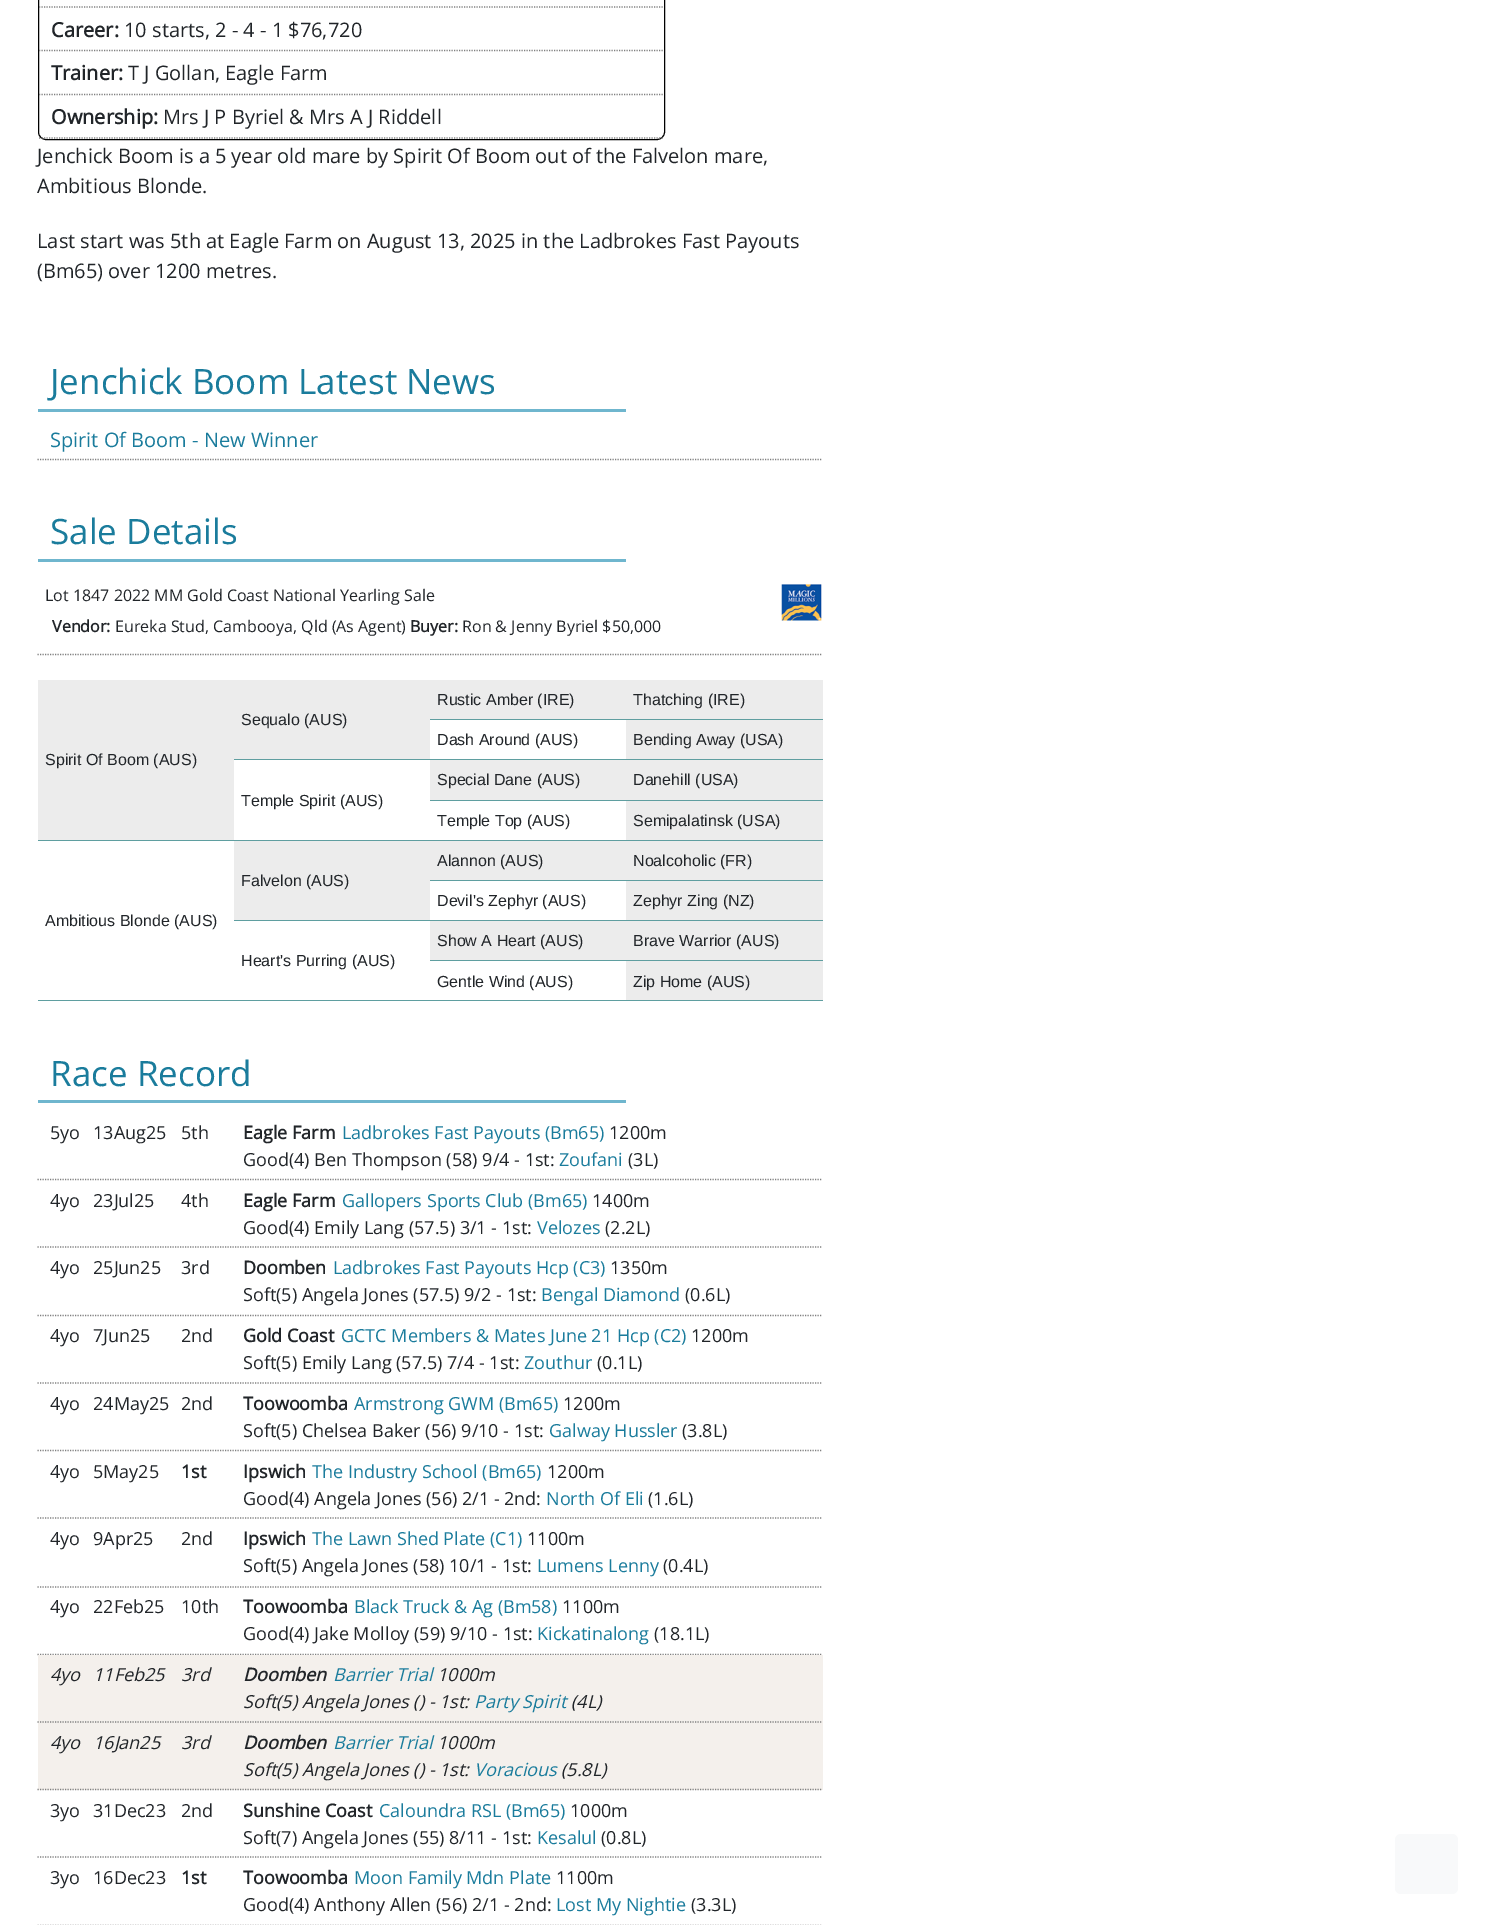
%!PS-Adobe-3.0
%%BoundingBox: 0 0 1488 1925
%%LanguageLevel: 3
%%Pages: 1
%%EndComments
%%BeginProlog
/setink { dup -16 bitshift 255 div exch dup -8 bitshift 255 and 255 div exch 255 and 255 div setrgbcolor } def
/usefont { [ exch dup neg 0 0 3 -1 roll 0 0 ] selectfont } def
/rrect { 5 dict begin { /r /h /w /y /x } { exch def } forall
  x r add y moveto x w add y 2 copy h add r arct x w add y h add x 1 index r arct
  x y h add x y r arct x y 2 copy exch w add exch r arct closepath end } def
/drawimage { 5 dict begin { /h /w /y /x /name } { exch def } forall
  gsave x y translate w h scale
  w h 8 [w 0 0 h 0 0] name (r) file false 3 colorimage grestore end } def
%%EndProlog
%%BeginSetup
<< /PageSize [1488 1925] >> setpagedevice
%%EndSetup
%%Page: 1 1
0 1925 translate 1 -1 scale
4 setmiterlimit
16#FFFFFF setink
0 0 1488 1925 rectfill
16#000000 setink
38.5 -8.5 626 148 7.5 rrect stroke
16#808080 setink
1.2 setlinewidth
[1.25 1.25] 0 setdash
39 7 moveto 664 7 lineto stroke
39 50.5 moveto 664 50.5 lineto stroke
/OpenSans-Bold 20 usefont
16#212529 setink
51 37 moveto (Career:) show
/OpenSans-Regular 20 usefont
124 37 moveto (10 starts, 2 - 4 - 1 $76,720) show
16#808080 setink
39 94.5 moveto 664 94.5 lineto stroke
/OpenSans-Bold 20 usefont
16#212529 setink
51 80 moveto (Trainer:) show
/OpenSans-Regular 20 usefont
128 80 moveto (T J Gollan, Eagle Farm) show
16#808080 setink
39 138 moveto 664 138 lineto stroke
/OpenSans-Bold 20 usefont
16#212529 setink
51 124 moveto (Ownership:) show
/OpenSans-Regular 20 usefont
[
    [(Mrs J P Byriel & Mrs A J Riddell) 163 124]
    [(Jenchick Boom is a 5 year old mare by Spirit Of Boom out of the Falvelon mare,) 37 163]
    [(Ambitious Blonde.) 37 193]
    [(Last start was 5th at Eagle Farm on August 13, 2025 in the Ladbrokes Fast Payouts) 37 248]
    [(\(Bm65\) over 1200 metres.) 37 278]
] { aload pop moveto show } forall
16#6FB6CE setink
38 409 588 3 rectfill
/OpenSans-Regular 35 usefont
16#1A7C9C setink
50 394 moveto (Jenchick Boom Latest News) show
16#808080 setink
37.5 459.5 moveto 822.5 459.5 lineto stroke
/OpenSans-Regular 20 usefont
16#1A7C9C setink
50 447 moveto (Spirit Of Boom - New Winner) show
16#6FB6CE setink
38 559 588 3 rectfill
/OpenSans-Regular 35 usefont
16#1A7C9C setink
50 544 moveto (Sale Details) show
16#808080 setink
37.5 654.5 moveto 822.5 654.5 lineto stroke
/OpenSans-Regular 16 usefont
16#212529 setink
45 601 moveto (Lot 1847 2022 MM Gold Coast National Yearling Sale) show
(img1.raw) 781 584 41 37 drawimage
/OpenSans-Bold 16 usefont
52 632 moveto (Vendor:) show
/OpenSans-Regular 16 usefont
115 632 moveto (Eureka Stud, Cambooya, Qld \(As Agent\)) show
/OpenSans-Bold 16 usefont
410 632 moveto (Buyer:) show
/OpenSans-Regular 16 usefont
462 632 moveto (Ron & Jenny Byriel $50,000) show
16#ECECEC setink
430 680 393 39 rectfill
16#5F9EA0 setink
430 719 393 1 rectfill
/LiberationSans-Regular 16 usefont
16#212529 setink
437 705 moveto (Rustic Amber \(IRE\)) show
633 705 moveto (Thatching \(IRE\)) show
16#ECECEC setink
234 680 196 79 rectfill
16#5F9EA0 setink
234 759 589 1 rectfill
16#212529 setink
241 725 moveto (Sequalo \(AUS\)) show
437 745 moveto (Dash Around \(AUS\)) show
16#ECECEC setink
626 720 197 39 rectfill
16#212529 setink
633 745 moveto (Bending Away \(USA\)) show
16#ECECEC setink
38 680 196 160 rectfill
16#5F9EA0 setink
38 840 785 1 rectfill
16#212529 setink
45 765 moveto (Spirit Of Boom \(AUS\)) show
16#ECECEC setink
430 760 393 40 rectfill
16#5F9EA0 setink
430 800 393 1 rectfill
16#212529 setink
[
    [(Special Dane \(AUS\)) 437 785]
    [(Danehill \(USA\)) 633 785]
    [(Temple Spirit \(AUS\)) 241 806]
    [(Temple Top \(AUS\)) 437 826]
] { aload pop moveto show } forall
16#ECECEC setink
626 801 197 39 rectfill
16#212529 setink
633 826 moveto (Semipalatinsk \(USA\)) show
16#ECECEC setink
430 841 393 39 rectfill
16#5F9EA0 setink
430 880 393 1 rectfill
16#212529 setink
437 866 moveto (Alannon \(AUS\)) show
633 866 moveto (Noalcoholic \(FR\)) show
16#ECECEC setink
234 841 196 79 rectfill
16#5F9EA0 setink
234 920 589 1 rectfill
16#212529 setink
241 886 moveto (Falvelon \(AUS\)) show
437 906 moveto (Devil's Zephyr \(AUS\)) show
16#ECECEC setink
626 881 197 39 rectfill
16#212529 setink
633 906 moveto (Zephyr Zing \(NZ\)) show
16#5F9EA0 setink
38 1000 785 1 rectfill
16#212529 setink
45 926 moveto (Ambitious Blonde \(AUS\)) show
16#ECECEC setink
430 921 393 39 rectfill
16#5F9EA0 setink
430 960 393 1 rectfill
16#212529 setink
[
    [(Show A Heart \(AUS\)) 437 946]
    [(Brave Warrior \(AUS\)) 633 946]
    [(Heart's Purring \(AUS\)) 241 966]
    [(Gentle Wind \(AUS\)) 437 987]
] { aload pop moveto show } forall
16#ECECEC setink
626 961 197 39 rectfill
16#212529 setink
633 987 moveto (Zip Home \(AUS\)) show
16#6FB6CE setink
38 1100 588 3 rectfill
/OpenSans-Regular 35 usefont
16#1A7C9C setink
50 1086 moveto (Race Record) show
16#808080 setink
37.5 1179.5 moveto 822.5 1179.5 lineto stroke
/OpenSans-Regular 18 usefont
16#212529 setink
[
    [(5yo) 50 1139]
    [(13Aug25) 93 1139]
    [(5th) 181 1139]
] { aload pop moveto show } forall
/OpenSans-Bold 18 usefont
243 1139 moveto (Eagle Farm) show
/OpenSans-Regular 18 usefont
16#1A7C9C setink
342 1139 moveto (Ladbrokes Fast Payouts \(Bm65\)) show
16#212529 setink
609 1139 moveto (1200m) show
243 1166 moveto (Good\(4\) Ben Thompson \(58\) 9/4 - 1st:) show
16#1A7C9C setink
559 1166 moveto (Zoufani) show
16#212529 setink
628 1166 moveto (\(3L\)) show
16#808080 setink
37.5 1247 moveto 822.5 1247 lineto stroke
16#212529 setink
[
    [(4yo) 50 1207]
    [(23Jul25) 93 1207]
    [(4th) 181 1207]
] { aload pop moveto show } forall
/OpenSans-Bold 18 usefont
243 1207 moveto (Eagle Farm) show
/OpenSans-Regular 18 usefont
16#1A7C9C setink
342 1207 moveto (Gallopers Sports Club \(Bm65\)) show
16#212529 setink
592 1207 moveto (1400m) show
243 1234 moveto (Good\(4\) Emily Lang \(57.5\) 3/1 - 1st:) show
16#1A7C9C setink
537 1234 moveto (Velozes) show
16#212529 setink
605 1234 moveto (\(2.2L\)) show
16#808080 setink
37.5 1315.5 moveto 822.5 1315.5 lineto stroke
16#212529 setink
[
    [(4yo) 50 1274]
    [(25Jun25) 93 1274]
    [(3rd) 181 1274]
] { aload pop moveto show } forall
/OpenSans-Bold 18 usefont
243 1274 moveto (Doomben) show
/OpenSans-Regular 18 usefont
16#1A7C9C setink
333 1274 moveto (Ladbrokes Fast Payouts Hcp \(C3\)) show
16#212529 setink
610 1274 moveto (1350m) show
243 1301 moveto (Soft\(5\) Angela Jones \(57.5\) 9/2 - 1st:) show
16#1A7C9C setink
541 1301 moveto (Bengal Diamond) show
16#212529 setink
685 1301 moveto (\(0.6L\)) show
16#808080 setink
37.5 1383 moveto 822.5 1383 lineto stroke
16#212529 setink
[
    [(4yo) 50 1342]
    [(7Jun25) 93 1342]
    [(2nd) 181 1342]
] { aload pop moveto show } forall
/OpenSans-Bold 18 usefont
243 1342 moveto (Gold Coast) show
/OpenSans-Regular 18 usefont
16#1A7C9C setink
341 1342 moveto (GCTC Members & Mates June 21 Hcp \(C2\)) show
16#212529 setink
691 1342 moveto (1200m) show
243 1369 moveto (Soft\(5\) Emily Lang \(57.5\) 7/4 - 1st:) show
16#1A7C9C setink
524 1369 moveto (Zouthur) show
16#212529 setink
597 1369 moveto (\(0.1L\)) show
16#808080 setink
37.5 1450.5 moveto 822.5 1450.5 lineto stroke
16#212529 setink
[
    [(4yo) 50 1410]
    [(24May25) 93 1410]
    [(2nd) 181 1410]
] { aload pop moveto show } forall
/OpenSans-Bold 18 usefont
243 1410 moveto (Toowoomba) show
/OpenSans-Regular 18 usefont
16#1A7C9C setink
354 1410 moveto (Armstrong GWM \(Bm65\)) show
16#212529 setink
563 1410 moveto (1200m) show
243 1437 moveto (Soft\(5\) Chelsea Baker \(56\) 9/10 - 1st:) show
16#1A7C9C setink
549 1437 moveto (Galway Hussler) show
16#212529 setink
682 1437 moveto (\(3.8L\)) show
16#808080 setink
37.5 1518 moveto 822.5 1518 lineto stroke
16#212529 setink
50 1478 moveto (4yo) show
93 1478 moveto (5May25) show
/OpenSans-Bold 18 usefont
181 1478 moveto (1st) show
243 1478 moveto (Ipswich) show
/OpenSans-Regular 18 usefont
16#1A7C9C setink
312 1478 moveto (The Industry School \(Bm65\)) show
16#212529 setink
547 1478 moveto (1200m) show
243 1505 moveto (Good\(4\) Angela Jones \(56\) 2/1 - 2nd:) show
16#1A7C9C setink
546 1505 moveto (North Of Eli) show
16#212529 setink
648 1505 moveto (\(1.6L\)) show
16#808080 setink
37.5 1587 moveto 822.5 1587 lineto stroke
16#212529 setink
[
    [(4yo) 50 1545]
    [(9Apr25) 93 1545]
    [(2nd) 181 1545]
] { aload pop moveto show } forall
/OpenSans-Bold 18 usefont
243 1545 moveto (Ipswich) show
/OpenSans-Regular 18 usefont
16#1A7C9C setink
312 1545 moveto (The Lawn Shed Plate \(C1\)) show
16#212529 setink
527 1545 moveto (1100m) show
243 1572 moveto (Soft\(5\) Angela Jones \(58\) 10/1 - 1st:) show
16#1A7C9C setink
537 1572 moveto (Lumens Lenny) show
16#212529 setink
663 1572 moveto (\(0.4L\)) show
16#808080 setink
37.5 1654.5 moveto 822.5 1654.5 lineto stroke
16#212529 setink
[
    [(4yo) 50 1613]
    [(22Feb25) 93 1613]
    [(10th) 181 1613]
] { aload pop moveto show } forall
/OpenSans-Bold 18 usefont
243 1613 moveto (Toowoomba) show
/OpenSans-Regular 18 usefont
16#1A7C9C setink
354 1613 moveto (Black Truck & Ag \(Bm58\)) show
16#212529 setink
562 1613 moveto (1100m) show
243 1640 moveto (Good\(4\) Jake Molloy \(59\) 9/10 - 1st:) show
16#1A7C9C setink
537 1640 moveto (Kickatinalong) show
16#212529 setink
654 1640 moveto (\(18.1L\)) show
16#F4F0EC setink
38 1655 785 135 rectfill
16#808080 setink
37.5 1722 moveto 822.5 1722 lineto stroke
/OpenSans-Italic 18 usefont
16#212529 setink
[
    [(4yo) 50 1681]
    [(11Feb25) 93 1681]
    [(3rd) 181 1681]
] { aload pop moveto show } forall
/OpenSans-BoldItalic 18 usefont
243 1681 moveto (Doomben) show
/OpenSans-Italic 18 usefont
16#1A7C9C setink
333 1681 moveto (Barrier Trial) show
16#212529 setink
437 1681 moveto (1000m) show
243 1708 moveto (Soft\(5\) Angela Jones \(\) - 1st:) show
16#1A7C9C setink
474 1708 moveto (Party Spirit) show
16#212529 setink
571 1708 moveto (\(4L\)) show
16#808080 setink
37.5 1789.5 moveto 822.5 1789.5 lineto stroke
16#212529 setink
[
    [(4yo) 50 1749]
    [(16Jan25) 93 1749]
    [(3rd) 181 1749]
] { aload pop moveto show } forall
/OpenSans-BoldItalic 18 usefont
243 1749 moveto (Doomben) show
/OpenSans-Italic 18 usefont
16#1A7C9C setink
333 1749 moveto (Barrier Trial) show
16#212529 setink
437 1749 moveto (1000m) show
243 1776 moveto (Soft\(5\) Angela Jones \(\) - 1st:) show
16#1A7C9C setink
474 1776 moveto (Voracious) show
16#212529 setink
561 1776 moveto (\(5.8L\)) show
16#808080 setink
37.5 1857 moveto 822.5 1857 lineto stroke
/OpenSans-Regular 18 usefont
16#212529 setink
[
    [(3yo) 50 1817]
    [(31Dec23) 93 1817]
    [(2nd) 181 1817]
] { aload pop moveto show } forall
/OpenSans-Bold 18 usefont
243 1817 moveto (Sunshine Coast) show
/OpenSans-Regular 18 usefont
16#1A7C9C setink
379 1817 moveto (Caloundra RSL \(Bm65\)) show
16#212529 setink
570 1817 moveto (1000m) show
243 1844 moveto (Soft\(7\) Angela Jones \(55\) 8/11 - 1st:) show
16#1A7C9C setink
537 1844 moveto (Kesalul) show
16#212529 setink
601 1844 moveto (\(0.8L\)) show
16#808080 setink
37.5 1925.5 moveto 822.5 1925.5 lineto stroke
16#212529 setink
50 1884 moveto (3yo) show
93 1884 moveto (16Dec23) show
/OpenSans-Bold 18 usefont
181 1884 moveto (1st) show
243 1884 moveto (Toowoomba) show
/OpenSans-Regular 18 usefont
16#1A7C9C setink
354 1884 moveto (Moon Family Mdn Plate) show
16#212529 setink
556 1884 moveto (1100m) show
243 1911 moveto (Good\(4\) Anthony Allen \(56\) 2/1 - 2nd:) show
16#1A7C9C setink
556 1911 moveto (Lost My Nightie) show
16#212529 setink
691 1911 moveto (\(3.3L\)) show
16#F8F9FA setink
1395 1834 63 60 6 rrect fill
showpage
%%EOF
